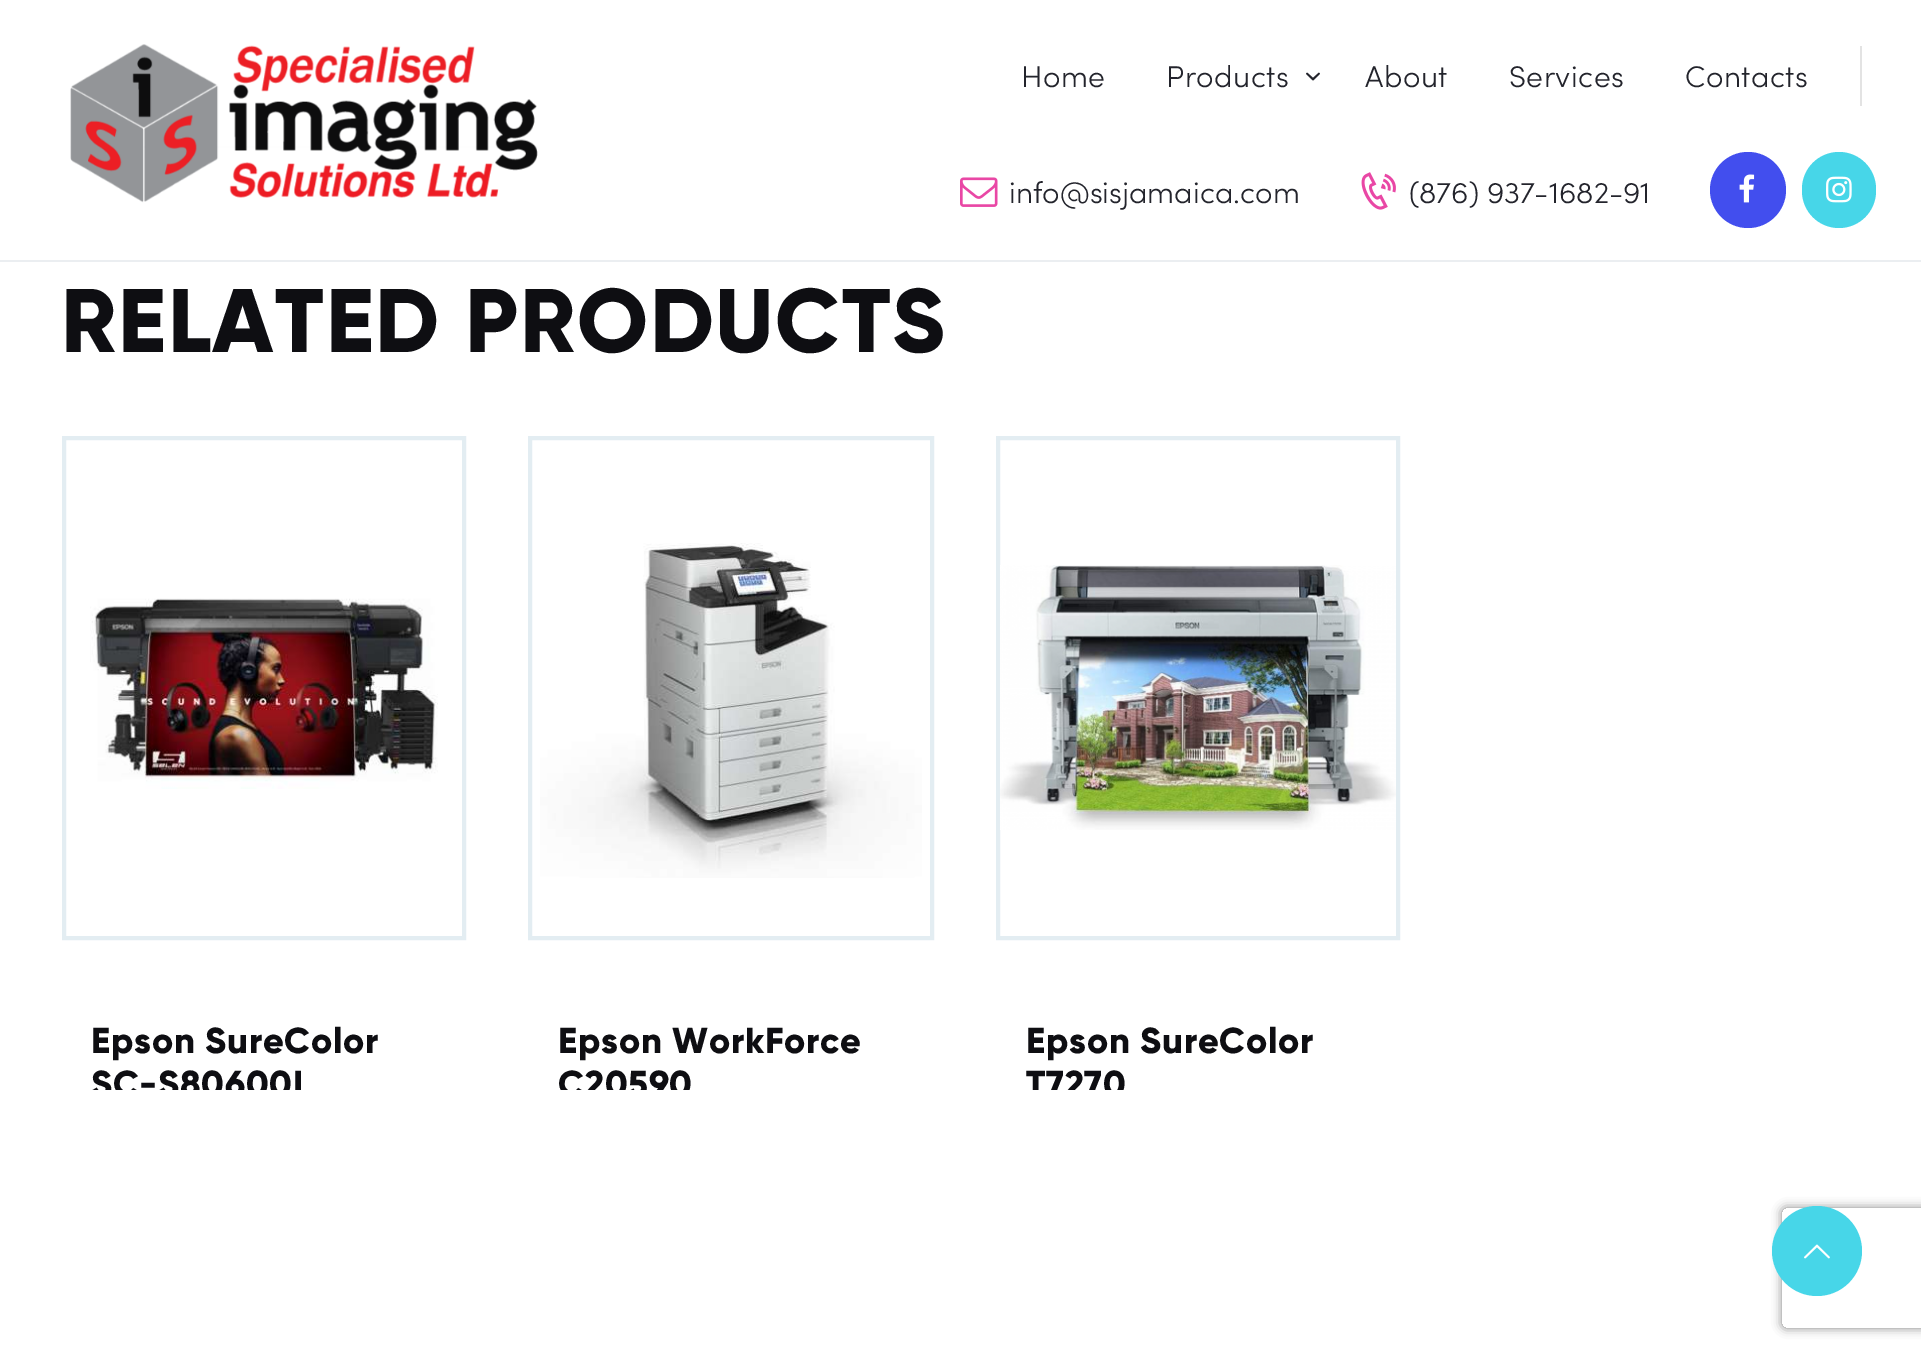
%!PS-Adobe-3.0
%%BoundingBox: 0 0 1921 1356
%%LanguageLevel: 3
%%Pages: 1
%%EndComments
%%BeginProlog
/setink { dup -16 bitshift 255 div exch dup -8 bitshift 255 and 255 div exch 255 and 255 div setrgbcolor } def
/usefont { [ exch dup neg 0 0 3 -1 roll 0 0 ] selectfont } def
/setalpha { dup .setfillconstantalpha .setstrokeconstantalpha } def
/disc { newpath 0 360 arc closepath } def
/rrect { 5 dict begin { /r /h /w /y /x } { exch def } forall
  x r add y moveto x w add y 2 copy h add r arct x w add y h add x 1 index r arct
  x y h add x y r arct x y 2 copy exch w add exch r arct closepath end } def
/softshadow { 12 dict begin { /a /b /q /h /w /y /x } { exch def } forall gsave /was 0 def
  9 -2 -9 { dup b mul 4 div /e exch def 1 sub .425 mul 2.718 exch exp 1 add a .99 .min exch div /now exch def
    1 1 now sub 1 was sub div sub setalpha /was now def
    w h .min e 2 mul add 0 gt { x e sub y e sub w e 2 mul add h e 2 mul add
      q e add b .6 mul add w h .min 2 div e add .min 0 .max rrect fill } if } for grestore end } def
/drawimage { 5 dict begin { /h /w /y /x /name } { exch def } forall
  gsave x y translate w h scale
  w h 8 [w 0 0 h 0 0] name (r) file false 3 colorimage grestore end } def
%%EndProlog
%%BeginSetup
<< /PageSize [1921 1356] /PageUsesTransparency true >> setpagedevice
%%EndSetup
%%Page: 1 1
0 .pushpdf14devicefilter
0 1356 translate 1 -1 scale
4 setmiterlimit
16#FFFFFF setink
0 0 1921 1356 rectfill
16#EBEEF1 setink
0 260 1921 2 rectfill
(img1.raw) 70 44 468 159 drawimage
16#E3E3E3 setink
1860 46 2 60 rectfill
/Sofia-Light 30 usefont
16#23242C setink
1021 87 moveto 0.5 0 (Home) ashow
1166 87 moveto 0.5 0 (Products) ashow
(img2.raw) 1306 72 14 9 drawimage
1365 87 moveto 0.5 0 (About) ashow
1509 87 moveto 0.5 0 (Services) ashow
1685 87 moveto 0.5 0 (Contacts) ashow
(img3.raw) 960 177 38 30 drawimage
1009 203 moveto (info@sisjamaica.com) show
(img4.raw) 1361 172 35 38 drawimage
1409 203 moveto (\(876\) 937-1682-91) show
16#424EEE setink
1748 190 38 disc fill
(img5.raw) 1739 174 16 29 drawimage
16#47D6E8 setink
1802 152 74 76 37 rrect fill
(img6.raw) 1826 176 26 27 drawimage
/Gilroy-ExtraBold 90 usefont
16#0E0E12 setink
61 352 moveto 1.75 0 (RELATED PRODUCTS) ashow
16#E3EDF2 setink
4 setlinewidth
64 438 400 500 rectstroke
(img7.raw) 90 598 348 191 drawimage
/Gilroy-ExtraBold 36 usefont
16#0E0E12 setink
91 1053 moveto 0.75 0 (Epson SureColor) ashow
gsave
62 940 404 150 rectclip
91 1096 moveto 0.75 0 (SC-S80600L) ashow
grestore
16#E3EDF2 setink
530 438 402 500 rectstroke
(img8.raw) 540 543 382 335 drawimage
16#0E0E12 setink
558 1053 moveto 0.75 0 (Epson WorkForce) ashow
gsave
528 940 406 150 rectclip
558 1096 moveto 0.75 0 (C20590) ashow
grestore
16#E3EDF2 setink
998 438 400 500 rectstroke
(img9.raw) 1000 565 396 265 drawimage
16#0E0E12 setink
1026 1053 moveto 0.75 0 (Epson SureColor) ashow
gsave
996 940 404 150 rectclip
1026 1096 moveto 0.75 0 (T7270) ashow
grestore
gsave
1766 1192 moveto 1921 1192 lineto 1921 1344 lineto 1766 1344 lineto closepath 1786 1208 moveto 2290 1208 lineto 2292 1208 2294 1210 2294 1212 curveto 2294 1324 lineto 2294 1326 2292 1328 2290 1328 curveto 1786 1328 lineto 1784 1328 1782 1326 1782 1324 curveto 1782 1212 lineto 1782 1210 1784 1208 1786 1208 curveto closepath eoclip newpath
16#808080 setink
1782 1208 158 120 4 5 1 softshadow
grestore
16#47D6E8 setink
1817 1251 45 disc fill
(img10.raw) 1804 1244 26 15 drawimage
.poppdf14devicefilter showpage
%%EOF
